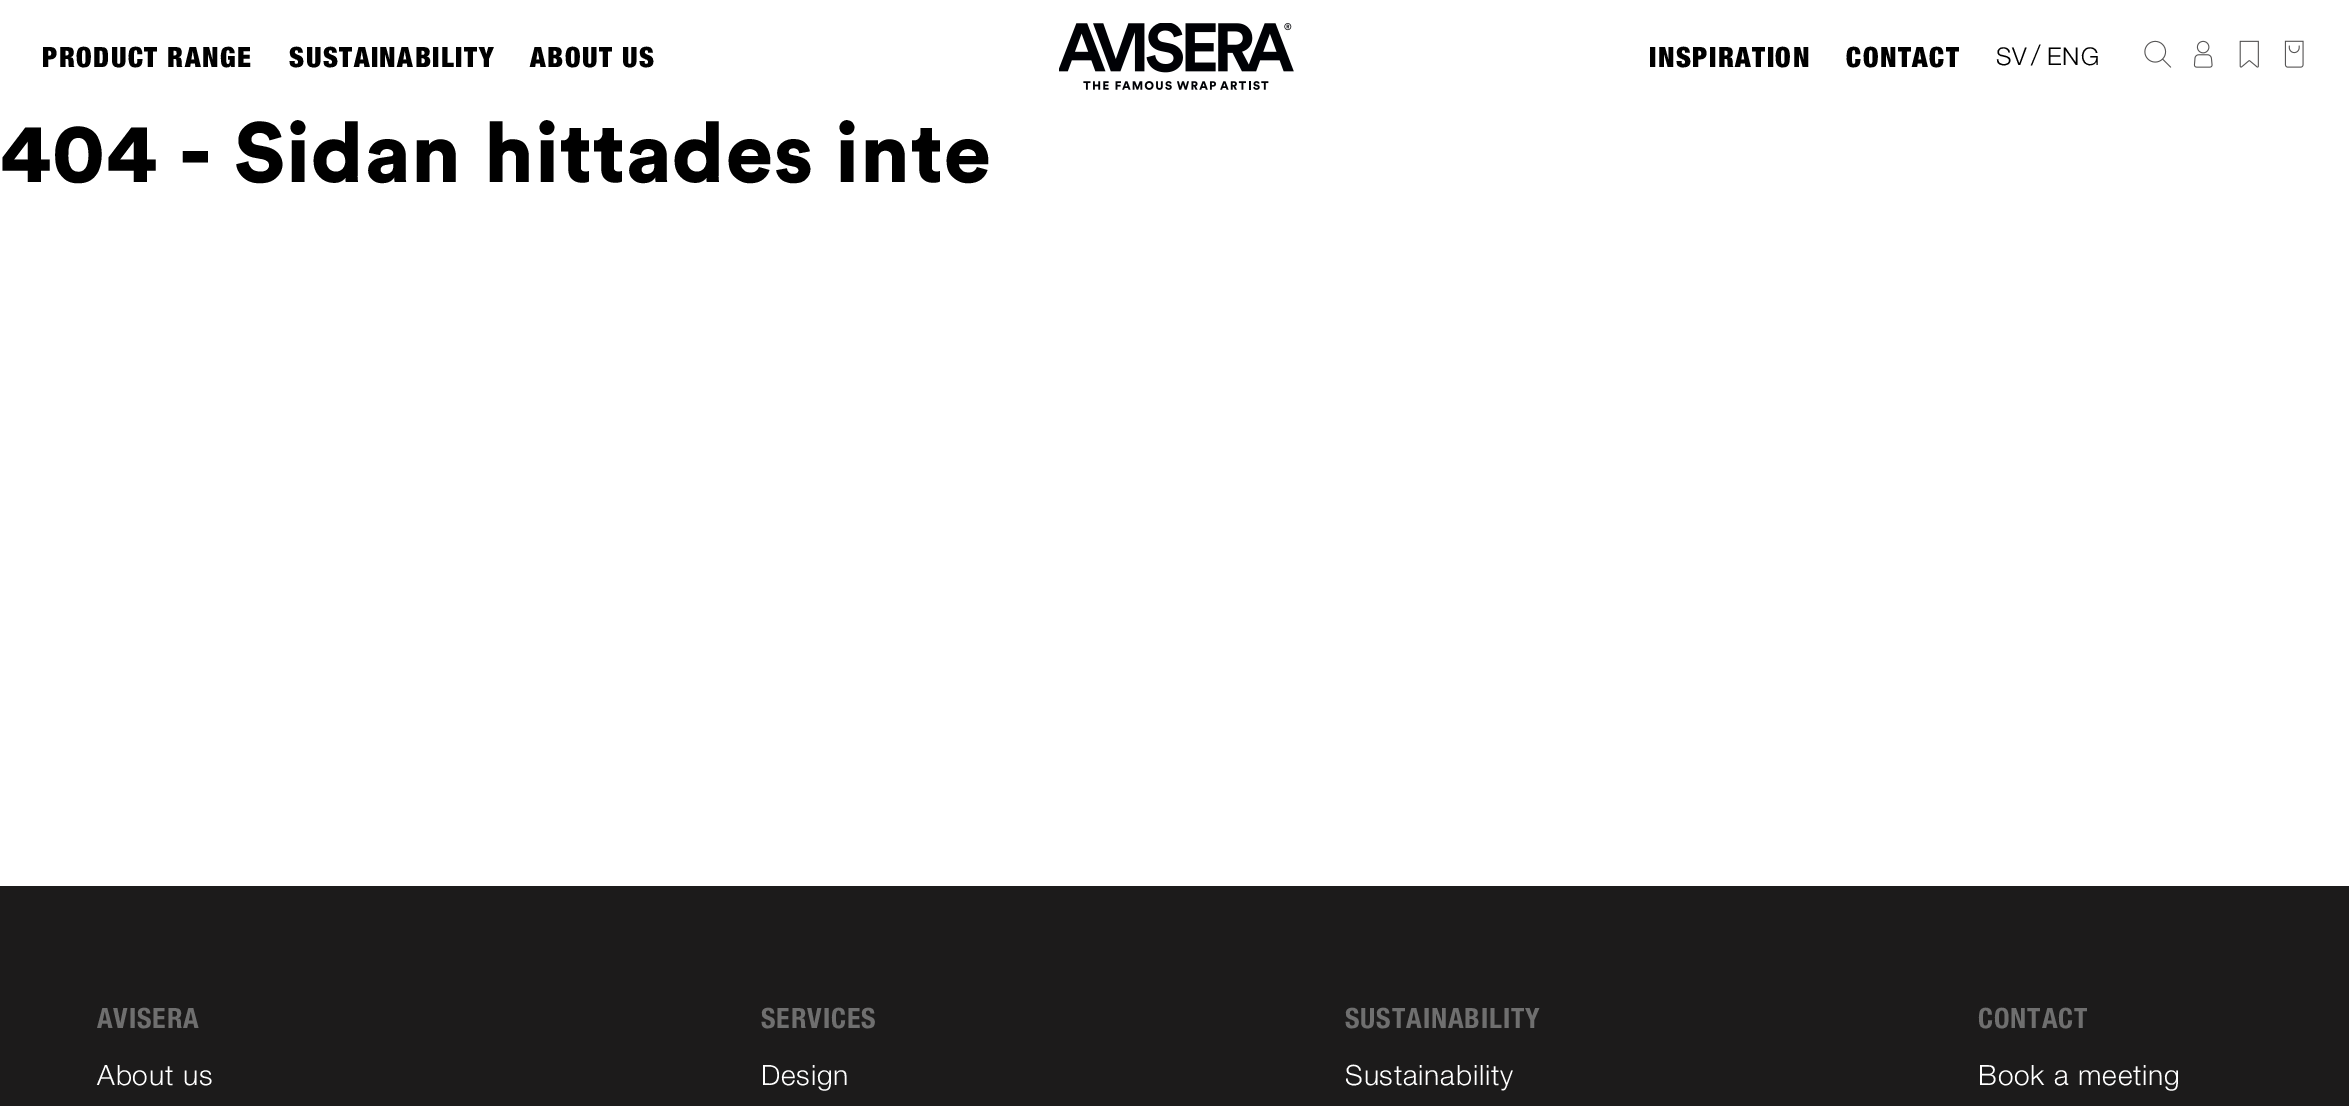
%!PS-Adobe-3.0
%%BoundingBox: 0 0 2349 1106
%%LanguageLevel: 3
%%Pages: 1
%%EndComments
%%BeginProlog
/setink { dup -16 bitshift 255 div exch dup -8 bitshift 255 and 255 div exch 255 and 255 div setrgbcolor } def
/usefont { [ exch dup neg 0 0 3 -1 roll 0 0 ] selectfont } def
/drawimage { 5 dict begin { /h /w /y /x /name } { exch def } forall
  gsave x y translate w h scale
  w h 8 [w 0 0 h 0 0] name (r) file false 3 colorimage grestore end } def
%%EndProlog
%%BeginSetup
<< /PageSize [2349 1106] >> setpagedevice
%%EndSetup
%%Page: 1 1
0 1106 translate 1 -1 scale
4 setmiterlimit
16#FFFFFF setink
0 0 2349 1106 rectfill
/HelveticaNeue-Black 28 usefont
16#000000 setink
42 67 moveto 1.5 0 (PRODUCT RANGE) ashow
289 67 moveto 1.5 0 (SUSTAINABILITY) ashow
530 67 moveto 1.5 0 (ABOUT US) ashow
(img1.raw) 1059 23 235 67 drawimage
1649 67 moveto 1.5 0 (INSPIRATION) ashow
1846 67 moveto 1.5 0 (CONTACT) ashow
/HelveticaNeue-Light 24.5 usefont
1996 65 moveto 0.9 0 (SV) ashow
/HelveticaNeue-Light 28 usefont
2031 65 moveto 0.9 0 (/) ashow
/HelveticaNeue-Light 24.5 usefont
2047 65 moveto 0.9 0 (ENG) ashow
(img2.raw) 2144 40 28 28 drawimage
(img3.raw) 2193 40 20 28 drawimage
(img4.raw) 2239 40 20 28 drawimage
(img5.raw) 2284 40 20 28 drawimage
/Circular-Black 84 usefont
0 182 moveto 0.9 0 (404 - Sidan hittades inte) ashow
16#1C1B1B setink
0 886 2349 220 rectfill
/HelveticaNeue-Bold 28 usefont
16#6F6F6F setink
97 1028 moveto 0.9 0 (AVISERA) ashow
/HelveticaNeue-Light 28 usefont
16#FFFFFF setink
97 1085 moveto 0.9 0 (About us) ashow
/HelveticaNeue-Bold 28 usefont
16#6F6F6F setink
761 1028 moveto 0.9 0 (SERVICES) ashow
/HelveticaNeue-Light 28 usefont
16#FFFFFF setink
761 1085 moveto 0.9 0 (Design) ashow
/HelveticaNeue-Bold 28 usefont
16#6F6F6F setink
1345 1028 moveto 0.9 0 (SUSTAINABILITY) ashow
/HelveticaNeue-Light 28 usefont
16#FFFFFF setink
1345 1085 moveto 0.9 0 (Sustainability) ashow
/HelveticaNeue-Bold 28 usefont
16#6F6F6F setink
1978 1028 moveto 0.9 0 (CONTACT) ashow
/HelveticaNeue-Light 28 usefont
16#FFFFFF setink
1978 1085 moveto 0.9 0 (Book a meeting) ashow
showpage
%%EOF
